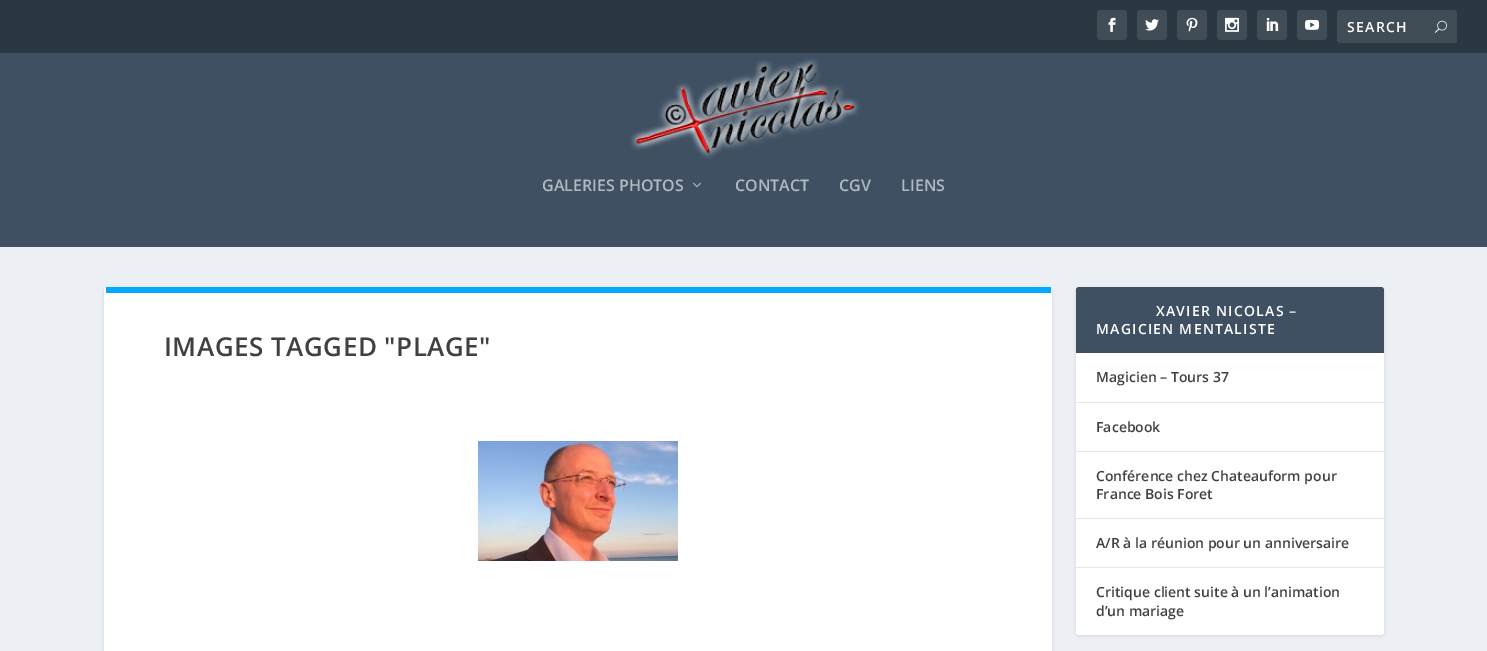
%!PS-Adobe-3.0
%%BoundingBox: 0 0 1487 651
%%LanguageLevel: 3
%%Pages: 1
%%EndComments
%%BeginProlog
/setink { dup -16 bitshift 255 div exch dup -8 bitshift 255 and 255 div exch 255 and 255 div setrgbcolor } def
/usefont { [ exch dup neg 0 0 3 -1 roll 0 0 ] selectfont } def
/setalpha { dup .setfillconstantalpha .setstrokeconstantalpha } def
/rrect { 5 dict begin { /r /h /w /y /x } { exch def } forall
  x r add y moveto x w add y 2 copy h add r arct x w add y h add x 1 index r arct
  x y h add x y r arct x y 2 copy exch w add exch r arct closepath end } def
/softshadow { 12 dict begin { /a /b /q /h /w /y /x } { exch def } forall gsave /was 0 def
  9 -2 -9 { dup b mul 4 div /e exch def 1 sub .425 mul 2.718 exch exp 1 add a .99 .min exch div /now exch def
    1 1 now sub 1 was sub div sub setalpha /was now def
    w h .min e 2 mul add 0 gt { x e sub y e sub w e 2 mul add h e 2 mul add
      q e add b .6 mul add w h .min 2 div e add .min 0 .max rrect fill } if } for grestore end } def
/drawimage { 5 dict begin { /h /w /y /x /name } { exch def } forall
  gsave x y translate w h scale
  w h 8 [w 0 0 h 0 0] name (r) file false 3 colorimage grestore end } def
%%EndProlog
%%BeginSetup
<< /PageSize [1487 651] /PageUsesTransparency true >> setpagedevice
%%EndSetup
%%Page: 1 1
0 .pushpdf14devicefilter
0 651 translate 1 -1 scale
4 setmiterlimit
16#ECF0F5 setink
0 0 1487 651 rectfill
16#2B3843 setink
0 0 1487 53 rectfill
16#404C56 setink
1097 10 30 30 3 rrect fill
(img1.raw) 1108 17 8 15 drawimage
1137 10 30 30 3 rrect fill
(img2.raw) 1145 19 14 12 drawimage
1177 10 30 30 3 rrect fill
(img3.raw) 1186 17 12 15 drawimage
1217 10 30 30 3 rrect fill
(img4.raw) 1225 17 14 15 drawimage
1257 10 30 30 3 rrect fill
(img5.raw) 1266 17 13 14 drawimage
1297 10 30 30 3 rrect fill
(img6.raw) 1305 19 14 11 drawimage
1337 10 120 33 3 rrect fill
/OpenSans-SemiBold 14 usefont
16#FFFFFF setink
1347 32 moveto 1.25 0 (SEARCH) ashow
(img7.raw) 1435 20 12 13 drawimage
16#3E5062 setink
0 53 1487 194 rectfill
(img8.raw) 630 58 230 101 drawimage
/OpenSans-SemiBold 16 usefont
16#B2B9C0 setink
542 191 moveto (GALERIES PHOTOS) show
(img9.raw) 693 182 8 6 drawimage
[
    [(CONTACT) 735 191]
    [(CGV) 839 191]
    [(LIENS) 901 191]
] { aload pop moveto show } forall
16#000000 setink
104 288 948 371 3 1.5 0.1 softshadow
16#FFFFFF setink
104 287 948 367 3 rrect fill
16#00A8FF setink
106 287 945 6 rectfill
/OpenSans-SemiBold 26 usefont
16#404040 setink
164 356 moveto 0.5 0 (IMAGES TAGGED "PLAGE") ashow
(img10.raw) 478 441 200 120 drawimage
16#000000 setink
1076 288 308 348 3 1.5 0.1 softshadow
16#FFFFFF setink
1076 287 308 348 3 rrect fill
16#3E5062 setink
1079 287 moveto 1381 287 lineto 1382.5 287 1384 288.5 1384 290 curveto 1384 353 lineto 1076 353 lineto 1076 290 lineto 1076 288.5 1077.5 287 1079 287 curveto closepath fill
/OpenSans-SemiBold 14 usefont
16#FFFFFF setink
1156 316 moveto 1.25 0 (XAVIER NICOLAS –) ashow
1096 334 moveto 1.25 0 (MAGICIEN MENTALISTE) ashow
16#E6E6E6 setink
1076 402 308 1 rectfill
16#404040 setink
1096 382 moveto (Magicien – Tours 37) show
16#E6E6E6 setink
1076 451 308 1 rectfill
16#404040 setink
1096 432 moveto (Facebook) show
16#E6E6E6 setink
1076 518 308 1 rectfill
16#404040 setink
1096 481 moveto (Conférence chez Chateauform pour) show
1096 499 moveto (France Bois Foret) show
16#E6E6E6 setink
1076 567 308 1 rectfill
16#404040 setink
[
    [(A/R à la réunion pour un anniversaire) 1096 548]
    [(Critique client suite à un l’animation) 1096 597]
    [(d’un mariage) 1096 616]
] { aload pop moveto show } forall
.poppdf14devicefilter showpage
%%EOF
